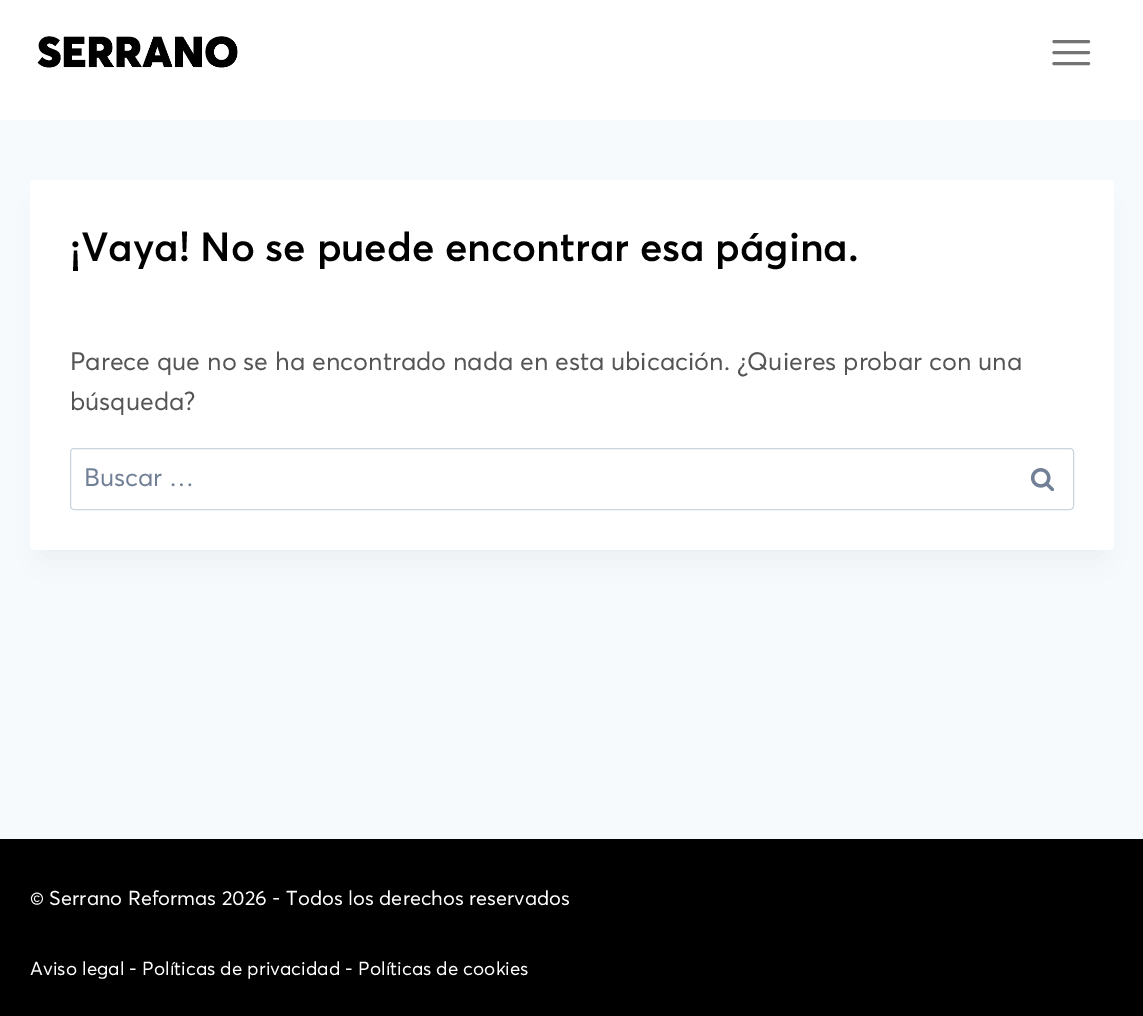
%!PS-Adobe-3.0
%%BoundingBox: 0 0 1143 1016
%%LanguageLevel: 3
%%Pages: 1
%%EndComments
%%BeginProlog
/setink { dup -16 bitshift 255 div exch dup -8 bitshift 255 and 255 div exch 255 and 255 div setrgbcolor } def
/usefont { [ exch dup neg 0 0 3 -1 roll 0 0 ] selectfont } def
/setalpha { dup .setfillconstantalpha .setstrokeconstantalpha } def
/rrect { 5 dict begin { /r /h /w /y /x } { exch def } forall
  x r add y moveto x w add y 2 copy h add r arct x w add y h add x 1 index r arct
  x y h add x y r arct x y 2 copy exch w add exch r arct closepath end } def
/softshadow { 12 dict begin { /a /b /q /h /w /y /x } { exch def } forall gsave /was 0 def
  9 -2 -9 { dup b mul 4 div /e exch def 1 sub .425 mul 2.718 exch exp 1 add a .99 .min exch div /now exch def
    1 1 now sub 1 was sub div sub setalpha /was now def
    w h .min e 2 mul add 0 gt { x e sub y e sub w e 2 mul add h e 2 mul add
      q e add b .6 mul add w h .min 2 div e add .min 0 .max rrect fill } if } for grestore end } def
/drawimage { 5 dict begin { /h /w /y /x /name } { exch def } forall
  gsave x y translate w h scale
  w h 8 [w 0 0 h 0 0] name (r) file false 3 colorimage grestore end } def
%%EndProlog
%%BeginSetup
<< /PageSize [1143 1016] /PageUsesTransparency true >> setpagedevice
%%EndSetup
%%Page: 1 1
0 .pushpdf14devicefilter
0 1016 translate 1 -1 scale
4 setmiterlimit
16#F7FAFC setink
0 0 1143 1016 rectfill
16#FFFFFF setink
0 0 1143 120 rectfill
(img1.raw) 37 36 201 32 drawimage
16#737373 setink
3.1 setlinewidth
1 setlinecap
1 setlinejoin
1054 41.5 moveto 1088.5 41.5 lineto 1054 52.5 moveto 1088.5 52.5 lineto 1054 63.5 moveto 1088.5 63.5 lineto stroke
16#000000 setink
43 211 1058 345 0 15.5 0.05 softshadow
16#FFFFFF setink
30 180 1084 370 5 rrect fill
/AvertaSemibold-SemiBold 40 usefont
16#000000 setink
70 261 moveto (¡Vaya! No se puede encontrar esa página.) show
/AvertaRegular-Regular 25 usefont
16#555555 setink
70 370 moveto (Parece que no se ha encontrado nada en esta ubicación. ¿Quieres probar con una) show
70 410 moveto (búsqueda?) show
16#CBD5E0 setink
1 setlinewidth
0 setlinecap
0 setlinejoin
70.5 448.5 1003 61 3.5 rrect stroke
16#718096 setink
84 486 moveto (Buscar …) show
(img2.raw) 1030 468 25 23 drawimage
16#000000 setink
0 839 1143 177 rectfill
/AvertaRegular-Regular 20 usefont
16#FFFFFF setink
30 905 moveto (© Serrano Reformas 2026 - Todos los derechos reservados) show
/AvertaRegular-Regular 18.75 usefont
30 975 moveto (Aviso legal - Políticas de privacidad - Políticas de cookies) show
.poppdf14devicefilter showpage
%%EOF
